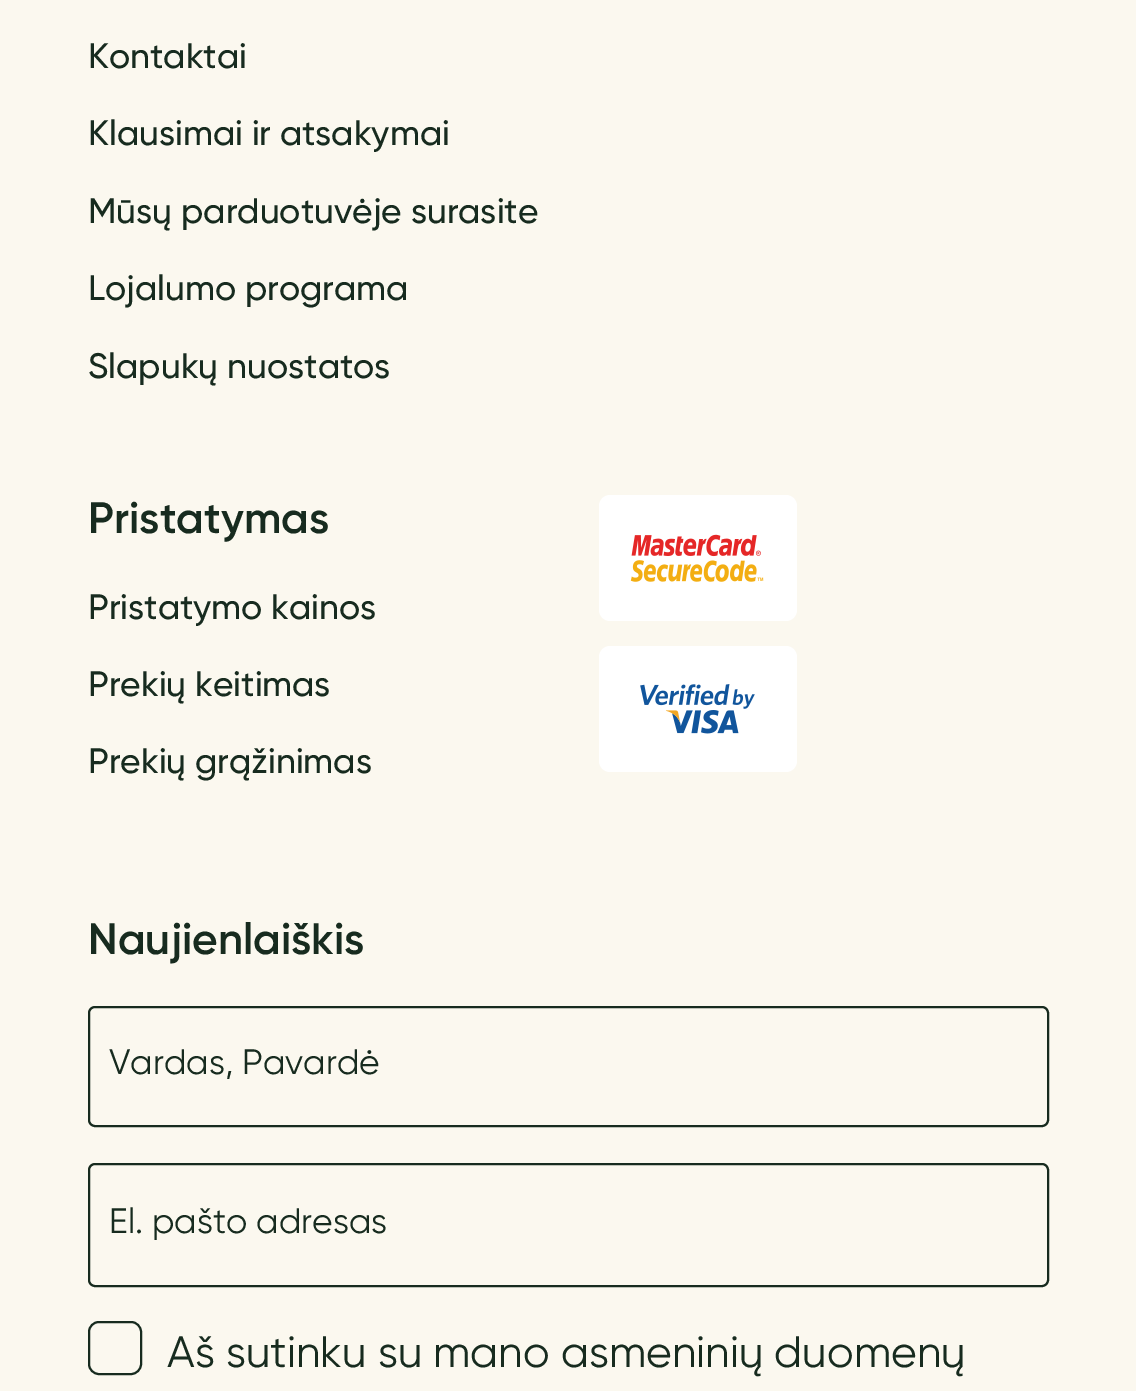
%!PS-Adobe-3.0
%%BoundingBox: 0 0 1136 1391
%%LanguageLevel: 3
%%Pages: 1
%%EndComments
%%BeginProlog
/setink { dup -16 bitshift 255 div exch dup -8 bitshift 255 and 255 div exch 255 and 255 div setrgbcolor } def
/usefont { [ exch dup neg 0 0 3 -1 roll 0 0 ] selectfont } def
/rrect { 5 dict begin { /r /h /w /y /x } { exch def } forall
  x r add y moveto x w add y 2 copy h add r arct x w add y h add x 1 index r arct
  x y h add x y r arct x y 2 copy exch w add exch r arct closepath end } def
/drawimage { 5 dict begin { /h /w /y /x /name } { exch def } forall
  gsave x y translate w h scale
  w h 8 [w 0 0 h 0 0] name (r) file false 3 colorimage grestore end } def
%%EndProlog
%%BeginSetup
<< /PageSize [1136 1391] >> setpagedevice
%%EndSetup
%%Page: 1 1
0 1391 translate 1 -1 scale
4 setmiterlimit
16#FBF8EF setink
0 0 1136 1391 rectfill
/Gilroy-Medium 35.25 usefont
16#172B1F setink
[
    [(Kontaktai) 88 68]
    [(Klausimai ir atsakymai) 88 145]
    [(Mūsų parduotuvėje surasite) 88 223]
    [(Lojalumo programa) 88 300]
    [(Slapukų nuostatos) 88 378]
] { aload pop moveto show } forall
/Gilroy-SemiBold 44 usefont
88 533 moveto (Pristatymas) show
/Gilroy-Medium 35.25 usefont
[
    [(Pristatymo kainos) 88 619]
    [(Prekių keitimas) 88 696]
    [(Prekių grąžinimas) 88 773]
] { aload pop moveto show } forall
16#FFFFFF setink
599 495 198 126 11 rrect fill
(img1.raw) 630 534 134 48 drawimage
599 646 198 126 11 rrect fill
(img2.raw) 640 684 115 50 drawimage
/Gilroy-SemiBold 44 usefont
16#172B1F setink
88 954 moveto (Naujienlaiškis) show
2 setlinewidth
89 1007 959 119 6 rrect stroke
/Gilroy-Regular 35.25 usefont
109 1074 moveto (Vardas, Pavardė) show
89 1164 959 122 6 rrect stroke
109 1233 moveto (El. pašto adresas) show
89 1322 52 52 10 rrect stroke
/Gilroy-Regular 44 usefont
167 1367 moveto (Aš sutinku su mano asmeninių duomenų) show
showpage
%%EOF
